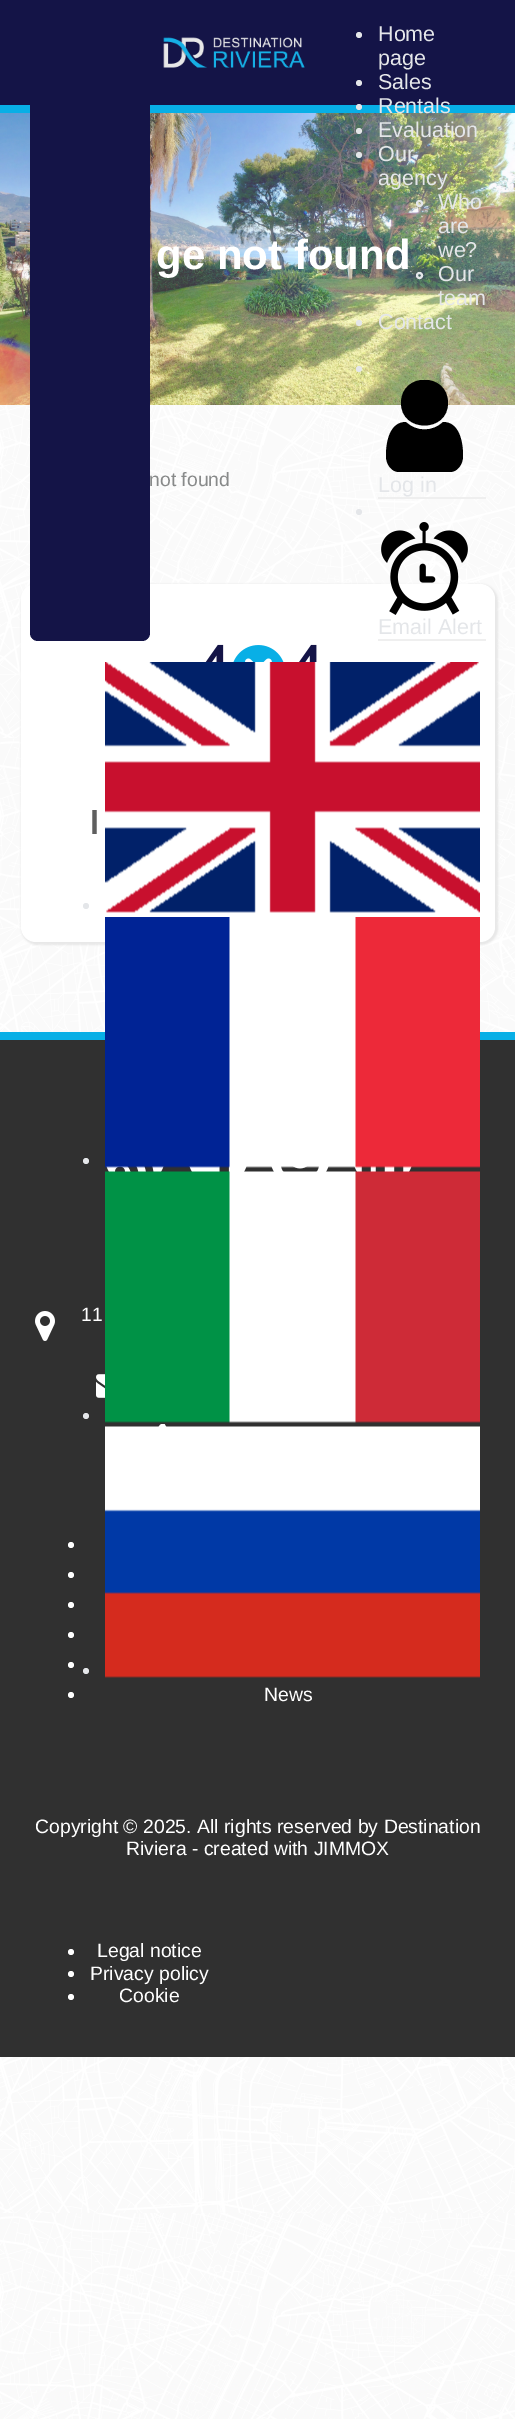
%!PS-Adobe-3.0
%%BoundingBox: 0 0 515 2419
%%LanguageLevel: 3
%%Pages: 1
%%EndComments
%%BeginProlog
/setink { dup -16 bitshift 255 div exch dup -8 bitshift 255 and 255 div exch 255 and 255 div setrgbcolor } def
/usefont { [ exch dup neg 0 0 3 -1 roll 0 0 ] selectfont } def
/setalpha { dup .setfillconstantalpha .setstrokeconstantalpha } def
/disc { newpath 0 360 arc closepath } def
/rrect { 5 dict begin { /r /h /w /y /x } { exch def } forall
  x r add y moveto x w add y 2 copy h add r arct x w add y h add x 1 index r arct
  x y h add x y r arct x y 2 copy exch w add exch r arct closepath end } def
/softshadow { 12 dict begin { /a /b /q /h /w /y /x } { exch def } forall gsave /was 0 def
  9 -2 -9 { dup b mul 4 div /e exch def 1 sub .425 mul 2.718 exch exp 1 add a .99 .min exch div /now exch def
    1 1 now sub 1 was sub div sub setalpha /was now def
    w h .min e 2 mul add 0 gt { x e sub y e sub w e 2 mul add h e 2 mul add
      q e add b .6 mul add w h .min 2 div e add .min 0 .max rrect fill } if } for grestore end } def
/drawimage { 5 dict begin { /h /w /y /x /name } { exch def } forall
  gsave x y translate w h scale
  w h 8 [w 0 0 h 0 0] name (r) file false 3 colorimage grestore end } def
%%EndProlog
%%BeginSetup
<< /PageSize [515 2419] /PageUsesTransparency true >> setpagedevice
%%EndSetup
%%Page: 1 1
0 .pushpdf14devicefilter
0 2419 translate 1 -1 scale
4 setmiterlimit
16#FAFAFA setink
0 0 515 2419 rectfill
(img1.raw) 0 405 515 2014 drawimage
(img2.raw) 0 113 515 292 drawimage
/LiberationSans-Bold 42 usefont
16#FFFFFF setink
156 269 moveto (ge not found) show
/LiberationSans-Regular 19.4 usefont
16#888A8A setink
149 486 moveto (not found) show
16#E7E7E7 setink
21 584 477 361 17 1 1 softshadow
16#FFFFFF setink
21 584 474 358 15 rrect fill
(img3.raw) 205 644 112 18 drawimage
/LiberationSans-Bold 33 usefont
16#5F5F5F setink
90 834 moveto (l) show
16#141447 setink
0 0 515 105 rectfill
16#08AFE6 setink
0 105 515 8 rectfill
16#141447 setink
30 0 120 641 8 rrect fill
(img4.raw) 163 37 142 31 drawimage
16#E4E6E9 setink
359 35 3 disc fill
/LiberationSans-Regular 21.5 usefont
378 41 moveto (Home) show
378 65 moveto (page) show
359 83 3 disc fill
378 89 moveto (Sales) show
359 107 3 disc fill
378 113 moveto (Rentals) show
359 131 3 disc fill
378 137 moveto (Evaluation) show
359 155 3 disc fill
378 161 moveto (Our) show
378 185 moveto (agency) show
2 setlinewidth
419.5 203.5 2.5 disc stroke
[
    [(Who) 438 209]
    [(are) 438 233]
    [(we?) 438 257]
] { aload pop moveto show } forall
419.5 275.5 2.5 disc stroke
438 281 moveto (Our) show
438 305 moveto (team) show
359 323 3 disc fill
378 329 moveto (Contact) show
16#EFEFEF setink
378 497 108 2 rectfill
16#E4E6E9 setink
359 369 3 disc fill
gsave
378 380 93 93 rectclip
16#000000 setink
463 456 moveto 463 465 457 472 450 472 curveto 399 472 lineto 392 472 386 465 386 456 curveto 386 441 390 422 406 422 curveto 416 432 433 432 443 422 curveto 459 422 463 441 463 456 curveto closepath 448 403 moveto 448 433 401 433 401 403 curveto 401 372 448 372 448 403 curveto closepath fill
grestore
378 492 moveto (Log in) show
16#EFEFEF setink
378 639 108 2 rectfill
16#E4E6E9 setink
359 512 3 disc fill
(img5.raw) 381 522 87 93 drawimage
378 634 moveto (Email Alert) show
86 906 3 disc fill
(img6.raw) 105 662 375 251 drawimage
16#303030 setink
0 1040 515 1017 rectfill
16#E4E6E9 setink
86 1161 3 disc fill
16#08AFE6 setink
0 1032 515 8 rectfill
(img10.raw) 106 1166 58 6 drawimage
(img11.raw) 189 1166 58 6 drawimage
(img12.raw) 271 1166 58 6 drawimage
(img13.raw) 354 1166 58 6 drawimage
(img7.raw) 105 917 375 251 drawimage
16#E4E6E9 setink
86 1416 3 disc fill
(img8.raw) 105 1171 375 252 drawimage
86 1671 3 disc fill
(img16.raw) 158 1424 9 3 drawimage
(img9.raw) 105 1426 375 252 drawimage
(img14.raw) 35 1311 20 30 drawimage
/LiberationSans-Regular 19.4 usefont
16#FFFFFF setink
81 1321 moveto (11) show
(img15.raw) 96 1374 9 24 drawimage
71 1545 3 disc fill
71 1575 3 disc fill
71 1605 3 disc fill
71 1635 3 disc fill
71 1665 3 disc fill
71 1695 3 disc fill
[
    [(News) 264 1701]
    [(Copyright © 2025. All rights reserved by Destination) 35 1833]
    [(Riviera - created with JIMMOX) 126 1855]
] { aload pop moveto show } forall
71 1952 3 disc fill
97 1957 moveto (Legal notice) show
71 1974 3 disc fill
90 1980 moveto (Privacy policy) show
71 1997 3 disc fill
119 2002 moveto (Cookie) show
.poppdf14devicefilter showpage
%%EOF
